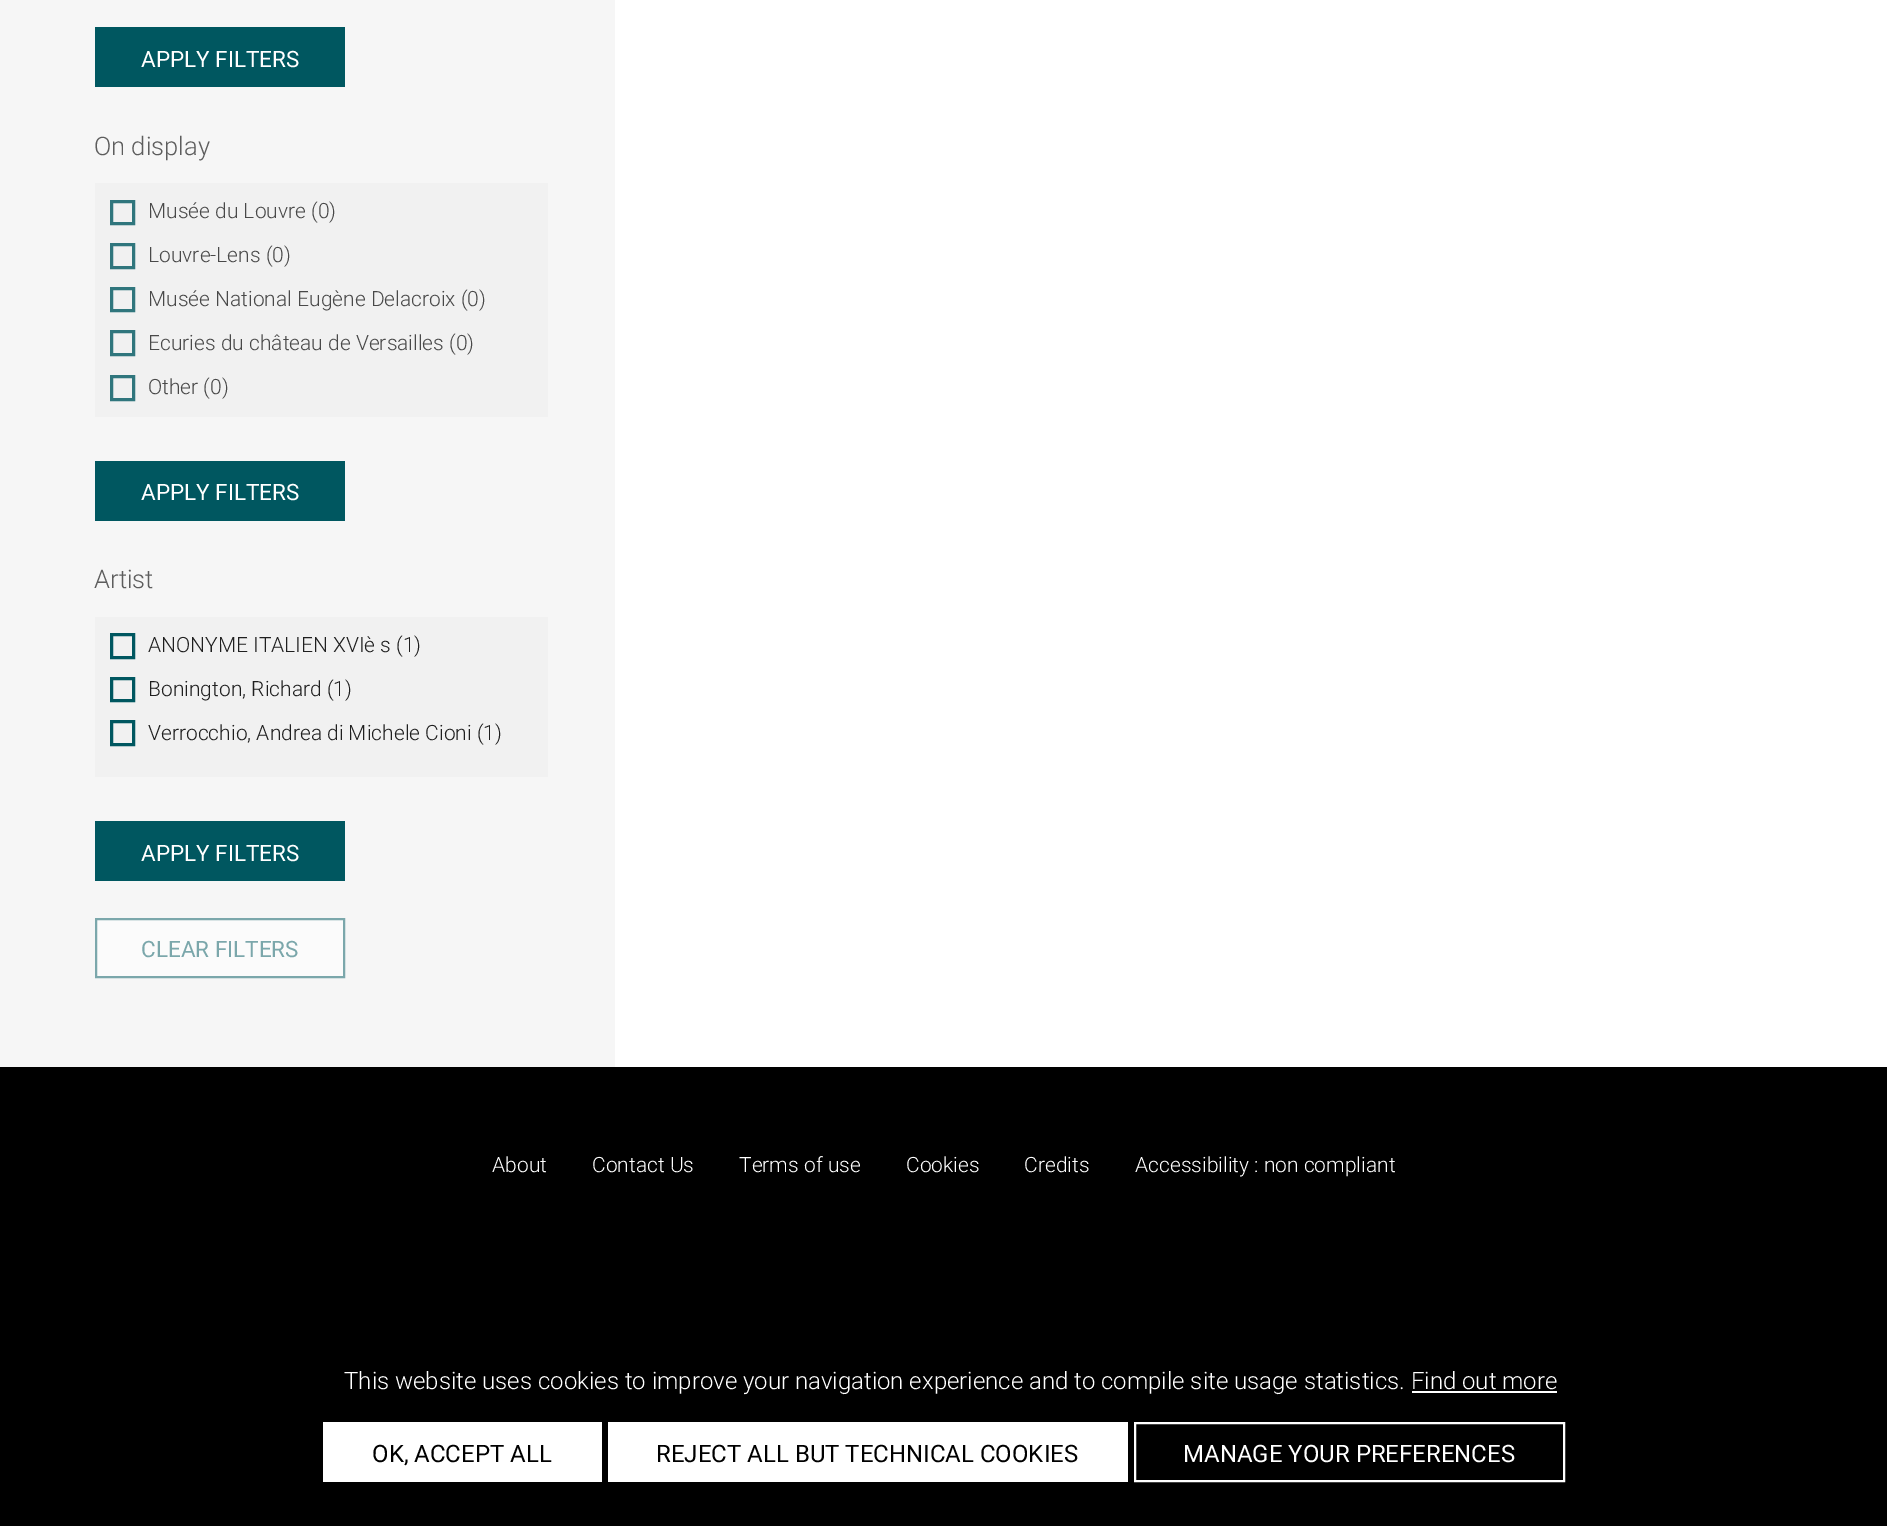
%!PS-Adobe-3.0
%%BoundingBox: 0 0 1887 1526
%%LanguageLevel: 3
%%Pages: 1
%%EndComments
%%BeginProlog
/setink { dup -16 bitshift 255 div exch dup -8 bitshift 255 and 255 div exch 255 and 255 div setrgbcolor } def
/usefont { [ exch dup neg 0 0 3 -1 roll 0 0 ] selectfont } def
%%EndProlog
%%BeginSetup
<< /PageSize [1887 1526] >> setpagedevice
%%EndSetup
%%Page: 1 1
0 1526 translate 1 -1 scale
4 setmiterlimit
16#FFFFFF setink
0 0 1887 1526 rectfill
16#F6F6F6 setink
0 0 615 1067 rectfill
16#005760 setink
95 27 250 60 rectfill
/Roboto-Regular 22.5 usefont
16#FFFFFF setink
141 67 moveto (APPLY FILTERS) show
/Roboto-Light 25.5 usefont
16#5D5D5D setink
94 155 moveto (On display) show
16#F1F1F1 setink
95 183 453 234 rectfill
16#30767D setink
3 setlinewidth
111.5 201.5 22 22 rectstroke
/Roboto-Light 21 usefont
16#494949 setink
148 218 moveto (Musée du Louvre \(0\)) show
16#30767D setink
111.5 244.5 22 23 rectstroke
16#494949 setink
148 262 moveto (Louvre-Lens \(0\)) show
16#30767D setink
111.5 288.5 22 22 rectstroke
16#494949 setink
148 306 moveto (Musée National Eugène Delacroix \(0\)) show
16#30767D setink
111.5 331.5 22 23 rectstroke
16#494949 setink
148 350 moveto (Ecuries du château de Versailles \(0\)) show
16#30767D setink
111.5 376.5 22 23 rectstroke
16#494949 setink
148 394 moveto (Other \(0\)) show
16#005760 setink
95 461 250 60 rectfill
/Roboto-Regular 22.5 usefont
16#FFFFFF setink
141 500 moveto (APPLY FILTERS) show
/Roboto-Light 25.5 usefont
16#5D5D5D setink
94 588 moveto (Artist) show
16#F1F1F1 setink
95 617 453 160 rectfill
16#005760 setink
111.5 634.5 22 23 rectstroke
/Roboto-Light 21 usefont
16#1F1F1F setink
148 652 moveto (ANONYME ITALIEN XVIè s \(1\)) show
16#005760 setink
111.5 678.5 22 22 rectstroke
16#1F1F1F setink
148 696 moveto (Bonington, Richard \(1\)) show
16#005760 setink
111.5 721.5 22 23 rectstroke
16#1F1F1F setink
148 740 moveto (Verrocchio, Andrea di Michele Cioni \(1\)) show
16#005760 setink
95 821 250 60 rectfill
/Roboto-Regular 22.5 usefont
16#FFFFFF setink
141 861 moveto (APPLY FILTERS) show
16#FBFBFB setink
96 919 moveto 344 919 lineto 344 977 lineto 96 977 lineto closepath gsave fill grestore
16#7BA7AB setink
2 setlinewidth
stroke
141 957 moveto (CLEAR FILTERS) show
16#000000 setink
0 1067 1887 459 rectfill
/Roboto-Light 21 usefont
16#FFFFFF setink
[
    [(About) 492 1172]
    [(Contact Us) 592 1172]
    [(Terms of use) 739 1172]
    [(Cookies) 906 1172]
    [(Credits) 1024 1172]
    [(Accessibility : non compliant) 1135 1172]
] { aload pop moveto show } forall
/Roboto-Light 24 usefont
344 1389 moveto (This website uses cookies to improve your navigation experience and to compile site usage statistics. Find out more) show
1412 1391 145 2 rectfill
323 1422 279 60 rectfill
/Roboto-Regular 24 usefont
16#000000 setink
372 1462 moveto (OK, ACCEPT ALL) show
16#FFFFFF setink
608 1422 520 60 rectfill
16#000000 setink
656 1462 moveto (REJECT ALL BUT TECHNICAL COOKIES) show
16#FFFFFF setink
1135 1423 429 58 rectstroke
1183 1462 moveto (MANAGE YOUR PREFERENCES) show
showpage
%%EOF
